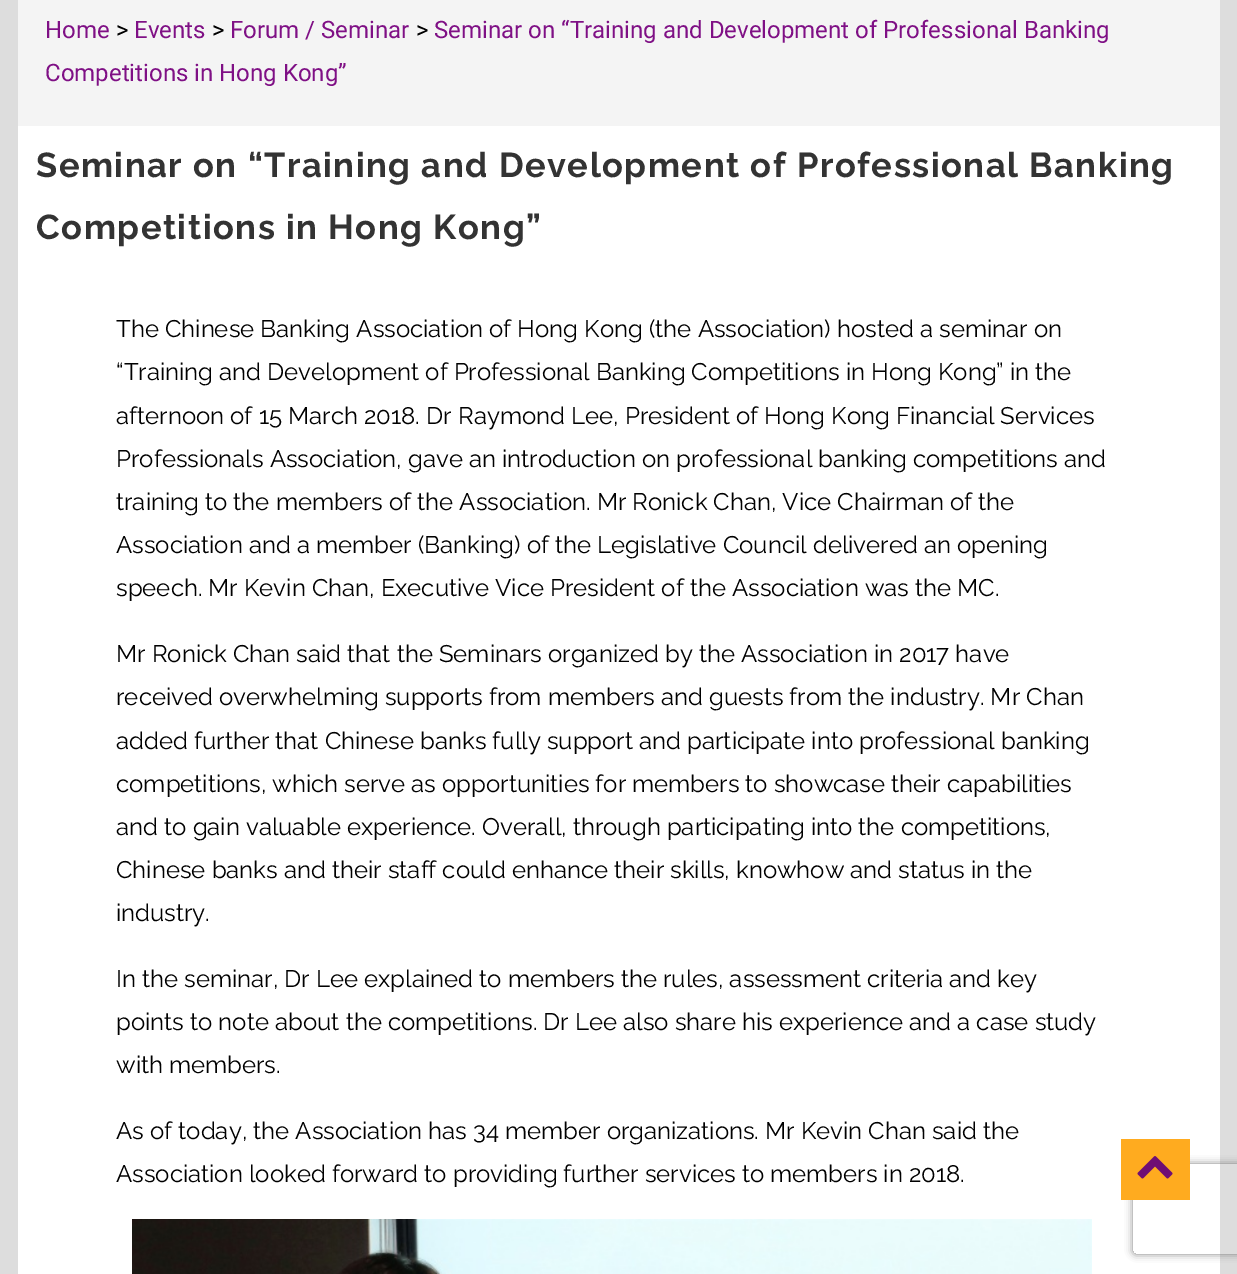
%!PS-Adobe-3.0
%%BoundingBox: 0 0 1237 1274
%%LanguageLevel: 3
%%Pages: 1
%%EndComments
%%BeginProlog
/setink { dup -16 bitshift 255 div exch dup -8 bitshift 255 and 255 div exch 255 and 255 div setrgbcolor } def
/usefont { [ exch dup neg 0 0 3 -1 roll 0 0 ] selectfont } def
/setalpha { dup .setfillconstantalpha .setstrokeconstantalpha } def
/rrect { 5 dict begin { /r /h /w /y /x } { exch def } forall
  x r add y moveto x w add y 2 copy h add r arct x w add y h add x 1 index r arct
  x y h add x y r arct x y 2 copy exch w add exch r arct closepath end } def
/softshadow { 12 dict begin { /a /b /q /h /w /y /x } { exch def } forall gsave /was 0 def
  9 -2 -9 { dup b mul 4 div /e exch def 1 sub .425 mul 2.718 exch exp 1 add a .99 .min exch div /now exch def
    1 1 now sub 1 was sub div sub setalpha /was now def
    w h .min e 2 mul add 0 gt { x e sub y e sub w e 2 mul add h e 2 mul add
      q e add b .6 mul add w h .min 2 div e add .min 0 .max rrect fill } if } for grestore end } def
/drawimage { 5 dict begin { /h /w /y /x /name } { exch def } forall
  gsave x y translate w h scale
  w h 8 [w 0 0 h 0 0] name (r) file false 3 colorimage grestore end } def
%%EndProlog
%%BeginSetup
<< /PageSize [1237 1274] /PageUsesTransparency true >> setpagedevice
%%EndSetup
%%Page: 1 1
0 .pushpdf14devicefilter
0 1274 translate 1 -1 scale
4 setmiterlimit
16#DDDDDD setink
0 0 1237 1274 rectfill
16#FFFFFF setink
18 126 1202 1148 rectfill
16#F4F4F4 setink
18 0 1202 126 rectfill
/Roboto-Regular 24 usefont
16#7F1085 setink
45 38 moveto (Home) show
16#000000 setink
116 38 moveto (>) show
16#7F1085 setink
134 38 moveto (Events) show
16#000000 setink
212 38 moveto (>) show
16#7F1085 setink
230 38 moveto (Forum / Seminar) show
16#000000 setink
416 38 moveto (>) show
16#7F1085 setink
434 38 moveto (Seminar on “Training and Development of Professional Banking) show
45 81 moveto (Competitions in Hong Kong”) show
/Raleway-Bold 34.5 usefont
16#333333 setink
36 177 moveto 1.5 0 (Seminar on “Training and Development of Professional Banking) ashow
36 239 moveto 1.5 0 (Competitions in Hong Kong”) ashow
/Raleway-Regular 24 usefont
16#000000 setink
[
    [(The Chinese Banking Association of Hong Kong \(the Association\) hosted a seminar on) 116 337]
    [(“Training and Development of Professional Banking Competitions in Hong Kong” in the) 116 380]
    [(afternoon of 15 March 2018. Dr Raymond Lee, President of Hong Kong Financial Services) 116 424]
    [(Professionals Association, gave an introduction on professional banking competitions and) 116 467]
    [(training to the members of the Association. Mr Ronick Chan, Vice Chairman of the) 116 510]
    [(Association and a member \(Banking\) of the Legislative Council delivered an opening) 116 553]
    [(speech. Mr Kevin Chan, Executive Vice President of the Association was the MC.) 116 596]
    [(Mr Ronick Chan said that the Seminars organized by the Association in 2017 have) 116 662]
    [(received overwhelming supports from members and guests from the industry. Mr Chan) 116 705]
    [(added further that Chinese banks fully support and participate into professional banking) 116 749]
    [(competitions, which serve as opportunities for members to showcase their capabilities) 116 792]
    [(and to gain valuable experience. Overall, through participating into the competitions,) 116 835]
    [(Chinese banks and their staff could enhance their skills, knowhow and status in the) 116 878]
    [(industry.) 116 921]
    [(In the seminar, Dr Lee explained to members the rules, assessment criteria and key) 116 987]
    [(points to note about the competitions. Dr Lee also share his experience and a case study) 116 1030]
    [(with members.) 116 1073]
    [(As of today, the Association has 34 member organizations. Mr Kevin Chan said the) 116 1139]
    [(Association looked forward to providing further services to members in 2018.) 116 1182]
] { aload pop moveto show } forall
(img1.raw) 132 1219 960 55 drawimage
gsave
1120 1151 moveto 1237 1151 lineto 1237 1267 lineto 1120 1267 lineto closepath 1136 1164 moveto 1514 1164 lineto 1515.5 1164 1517 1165.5 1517 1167 curveto 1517 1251 lineto 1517 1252.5 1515.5 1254 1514 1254 curveto 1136 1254 lineto 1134.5 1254 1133 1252.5 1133 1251 curveto 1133 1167 lineto 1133 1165.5 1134.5 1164 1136 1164 curveto closepath eoclip newpath
16#808080 setink
1133 1164 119 90 3 4 1 softshadow
grestore
16#FFAB1F setink
1121 1139 69 61 rectfill
(img2.raw) 1137 1156 36 23 drawimage
.poppdf14devicefilter showpage
%%EOF
